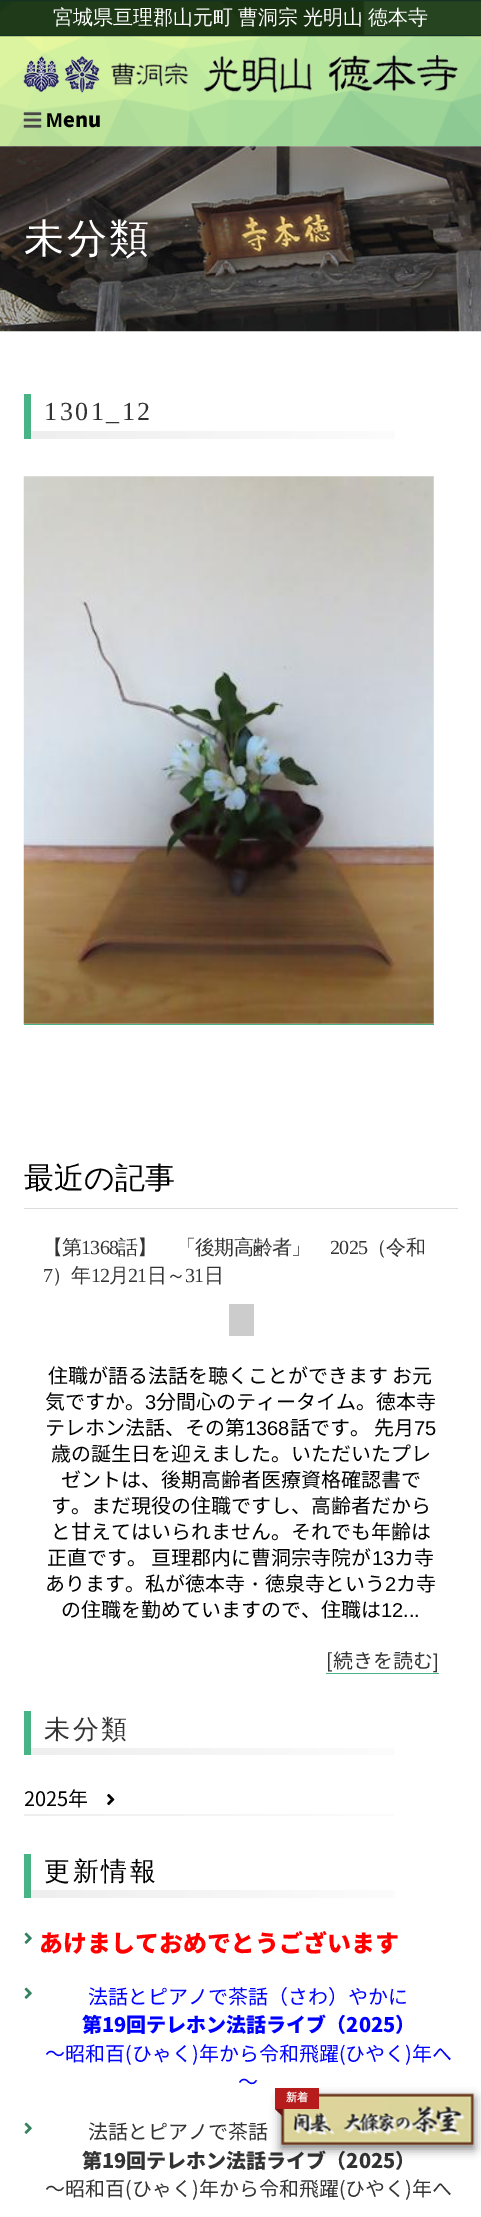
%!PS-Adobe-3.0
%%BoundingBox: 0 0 481 2217
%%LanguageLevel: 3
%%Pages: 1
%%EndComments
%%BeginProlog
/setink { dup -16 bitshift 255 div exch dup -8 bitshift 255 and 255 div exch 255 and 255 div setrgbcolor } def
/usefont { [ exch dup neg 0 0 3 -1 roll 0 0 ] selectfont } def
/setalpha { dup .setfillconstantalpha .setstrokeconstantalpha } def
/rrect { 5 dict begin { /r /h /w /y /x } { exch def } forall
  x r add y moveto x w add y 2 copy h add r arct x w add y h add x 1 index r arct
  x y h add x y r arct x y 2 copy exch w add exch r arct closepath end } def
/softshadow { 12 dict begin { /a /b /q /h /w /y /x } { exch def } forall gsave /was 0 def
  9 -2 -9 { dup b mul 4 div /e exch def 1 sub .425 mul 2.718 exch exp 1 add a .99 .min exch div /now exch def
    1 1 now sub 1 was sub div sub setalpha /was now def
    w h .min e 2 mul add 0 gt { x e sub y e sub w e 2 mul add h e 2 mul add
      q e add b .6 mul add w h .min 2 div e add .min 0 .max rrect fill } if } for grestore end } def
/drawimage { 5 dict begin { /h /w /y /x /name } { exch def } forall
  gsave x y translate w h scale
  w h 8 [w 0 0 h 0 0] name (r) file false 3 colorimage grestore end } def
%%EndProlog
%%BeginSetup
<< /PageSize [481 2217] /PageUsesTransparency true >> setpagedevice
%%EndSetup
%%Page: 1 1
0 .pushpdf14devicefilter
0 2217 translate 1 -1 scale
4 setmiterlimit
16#FFFFFF setink
0 0 481 2217 rectfill
16#000000 setink
0 0 481 146 0 3 0.8 softshadow
(img1.raw) 0 36 481 111 drawimage
16#143124 setink
0 0 481 35 rectfill
(img2.raw) 0 1 481 36 drawimage
0 35 481 1 rectfill
/WenQuanYiZenHei-Medium 20 usefont
16#FFFFFF setink
53 24 moveto -1 0 32 (宮城県亘理郡山元町 曹洞宗 光明山 徳本寺) widthshow
(img3.raw) 23 55 435 38 drawimage
(img4.raw) 23 112 19 16 drawimage
/LiberationSans-Bold 20 usefont
16#000000 setink
46 127 moveto (M) show
/NotoSansCJKJP-Black 20 usefont
63 127 moveto (enu) show
(img5.raw) 0 146 481 186 drawimage
/WenQuanYiZenHei-Medium 40 usefont
16#FFFFFF setink
24 252 moveto 2.5 0 (未分類) ashow
gsave 31 431 moveto 395 431 lineto 395 439 lineto 31 439 lineto closepath clip newpath
<< /ShadingType 2 /ColorSpace /DeviceRGB /Coords [31 435 458 435] /Extend [true true] /Function << /FunctionType 2 /Domain [0 1] /C0 [0.933 0.933 0.933] /C1 [1 1 1] /N 1 >> >> shfill grestore
16#48B384 setink
24 394 7 45 rectfill
/LiberationSerif-Regular 26 usefont
16#333333 setink
44 420 moveto 2.5 0 (1301_12) ashow
16#48B384 setink
24 1024 410 1 rectfill
(img6.raw) 23 476 411 548 drawimage
/WenQuanYiZenHei-Medium 30 usefont
16#000000 setink
24 1188 moveto (最近の記事) show
16#DDDDDD setink
24 1208 434 1 rectfill
/WenQuanYiZenHei-Medium 20 usefont
16#333333 setink
43 1254 moveto -0.75 0 (【第) ashow
/LiberationSerif-Regular 20 usefont
81 1254 moveto -0.75 0 (1368) ashow
/WenQuanYiZenHei-Medium 20 usefont
118 1254 moveto -0.75 0 (話】　「後期高齢者」) ashow
/LiberationSerif-Regular 20 usefont
330 1254 moveto -0.75 0 (2025) ashow
/WenQuanYiZenHei-Medium 20 usefont
367 1254 moveto -0.75 0 (（令和) ashow
/LiberationSerif-Regular 20 usefont
43 1282 moveto -0.75 0 (7) ashow
/WenQuanYiZenHei-Medium 20 usefont
52 1282 moveto -0.75 0 (）年) ashow
/LiberationSerif-Regular 20 usefont
91 1282 moveto -0.75 0 (12) ashow
/WenQuanYiZenHei-Medium 20 usefont
109 1282 moveto -0.75 0 (月) ashow
/LiberationSerif-Regular 20 usefont
128 1282 moveto -0.75 0 (21) ashow
/WenQuanYiZenHei-Medium 20 usefont
147 1282 moveto -0.75 0 (日～) ashow
/LiberationSerif-Regular 20 usefont
185 1282 moveto -0.75 0 (31) ashow
/WenQuanYiZenHei-Medium 20 usefont
204 1282 moveto -0.75 0 (日) ashow
16#CCCCCC setink
229 1304 25 32 rectfill
/NotoSansCJKJP-Regular 20 usefont
16#000000 setink
48 1383 moveto (住職が語る法話を聴くことができます お元) show
45 1409 moveto (気ですか。) show
/LiberationSans-Regular 20 usefont
145 1409 moveto (3) show
/NotoSansCJKJP-Regular 20 usefont
156 1409 moveto (分間心のティータイム。徳本寺) show
45 1435 moveto (テレホン法話、その第) show
/LiberationSans-Regular 20 usefont
245 1435 moveto (1368) show
/NotoSansCJKJP-Regular 20 usefont
290 1435 moveto (話です。 先月) show
/LiberationSans-Regular 20 usefont
414 1435 moveto (75) show
/NotoSansCJKJP-Regular 20 usefont
[
    [(歳の誕生日を迎えました。いただいたプレ) 51 1461]
    [(ゼントは、後期高齢者医療資格確認書で) 61 1487]
    [(す。まだ現役の住職ですし、高齢者だから) 51 1513]
    [(と甘えてはいられません。それでも年齢は) 51 1539]
    [(正直です。 亘理郡内に曹洞宗寺院が) 47 1565]
] { aload pop moveto show } forall
/LiberationSans-Regular 20 usefont
372 1565 moveto (13) show
/NotoSansCJKJP-Regular 20 usefont
394 1565 moveto (カ寺) show
45 1591 moveto (あります。私が徳本寺) show
/WenQuanYiZenHei-Medium 20 usefont
245 1591 moveto (・) show
/NotoSansCJKJP-Regular 20 usefont
265 1591 moveto (徳泉寺という) show
/LiberationSans-Regular 20 usefont
385 1591 moveto (2) show
/NotoSansCJKJP-Regular 20 usefont
396 1591 moveto (カ寺) show
61 1617 moveto (の住職を勤めていますので、住職は) show
/LiberationSans-Regular 20 usefont
381 1617 moveto (12...) show
16#48B384 setink
326 1673 113 1 rectfill
/NotoSansCJKJP-Regular 20 usefont
16#333333 setink
326 1668 moveto ([続きを読む) show
/LiberationSans-Regular 20 usefont
433 1668 moveto (]) show
gsave 31 1748 moveto 395 1748 lineto 395 1755 lineto 31 1755 lineto closepath clip newpath
<< /ShadingType 2 /ColorSpace /DeviceRGB /Coords [31 1751 458 1751] /Extend [true true] /Function << /FunctionType 2 /Domain [0 1] /C0 [0.933 0.933 0.933] /C1 [1 1 1] /N 1 >> >> shfill grestore
16#48B384 setink
24 1711 7 44 rectfill
/WenQuanYiZenHei-Medium 26 usefont
16#333333 setink
44 1738 moveto 2.5 0 (未分類) ashow
gsave 24 1814 moveto 394 1814 lineto 394 1816 lineto 24 1816 lineto closepath clip newpath
<< /ShadingType 2 /ColorSpace /DeviceRGB /Coords [24 1815 458 1816] /Extend [true true] /Function << /FunctionType 2 /Domain [0 1] /C0 [0.933 0.933 0.933] /C1 [1 1 1] /N 1 >> >> shfill grestore
/NotoSansCJKJP-Regular 20 usefont
16#000000 setink
24 1806 moveto (2025年) show
(img7.raw) 107 1793 8 13 drawimage
gsave 31 1890 moveto 395 1890 lineto 395 1898 lineto 31 1898 lineto closepath clip newpath
<< /ShadingType 2 /ColorSpace /DeviceRGB /Coords [31 1894 458 1894] /Extend [true true] /Function << /FunctionType 2 /Domain [0 1] /C0 [0.933 0.933 0.933] /C1 [1 1 1] /N 1 >> >> shfill grestore
16#48B384 setink
24 1854 7 44 rectfill
/WenQuanYiZenHei-Medium 26 usefont
16#000000 setink
44 1880 moveto 2.5 0 (更新情報) ashow
(img8.raw) 24 1932 8 12 drawimage
/NotoSansCJKJP-Black 24 usefont
16#FF0000 setink
39 1952 moveto (あけましておめでとうございます) show
(img8.raw) 24 1987 8 12 drawimage
/NotoSansCJKJP-Regular 20 usefont
16#0000FF setink
88 2004 moveto (法話とピアノで茶話（さわ）やかに) show
/NotoSansCJKJP-Black 20 usefont
82 2032 moveto (第19回テレホン法話ライブ（2025）) show
/NotoSansCJKJP-Regular 20 usefont
45 2061 moveto (～昭和百\(ひゃく\)年から令和飛躍\(ひやく\)年へ) show
238 2089 moveto (～) show
(img8.raw) 24 2122 8 12 drawimage
16#333333 setink
88 2139 moveto (法話とピアノで茶話) show
/NotoSansCJKJP-Black 20 usefont
82 2168 moveto (第19回テレホン法話ライブ（2025）) show
/NotoSansCJKJP-Regular 20 usefont
45 2196 moveto (～昭和百\(ひゃく\)年から令和飛躍\(ひやく\)年へ) show
gsave
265 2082 moveto 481 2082 lineto 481 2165 lineto 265 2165 lineto closepath 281 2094 moveto 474 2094 lineto 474 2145 lineto 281 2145 lineto closepath eoclip newpath
16#000000 setink
281 2098 193 51 0 5 0.5 softshadow
grestore
(img9.raw) 281 2093 193 52 drawimage
16#B71C1C setink
275 2088 44 21 rectfill
/WenQuanYiZenHei-Bold 11 usefont
16#FFFFFF setink
286 2101 moveto (新着) show
16#6E1111 setink
282.5 2109 moveto 282.5 2116 lineto 275 2109 lineto closepath fill
.poppdf14devicefilter showpage
%%EOF
